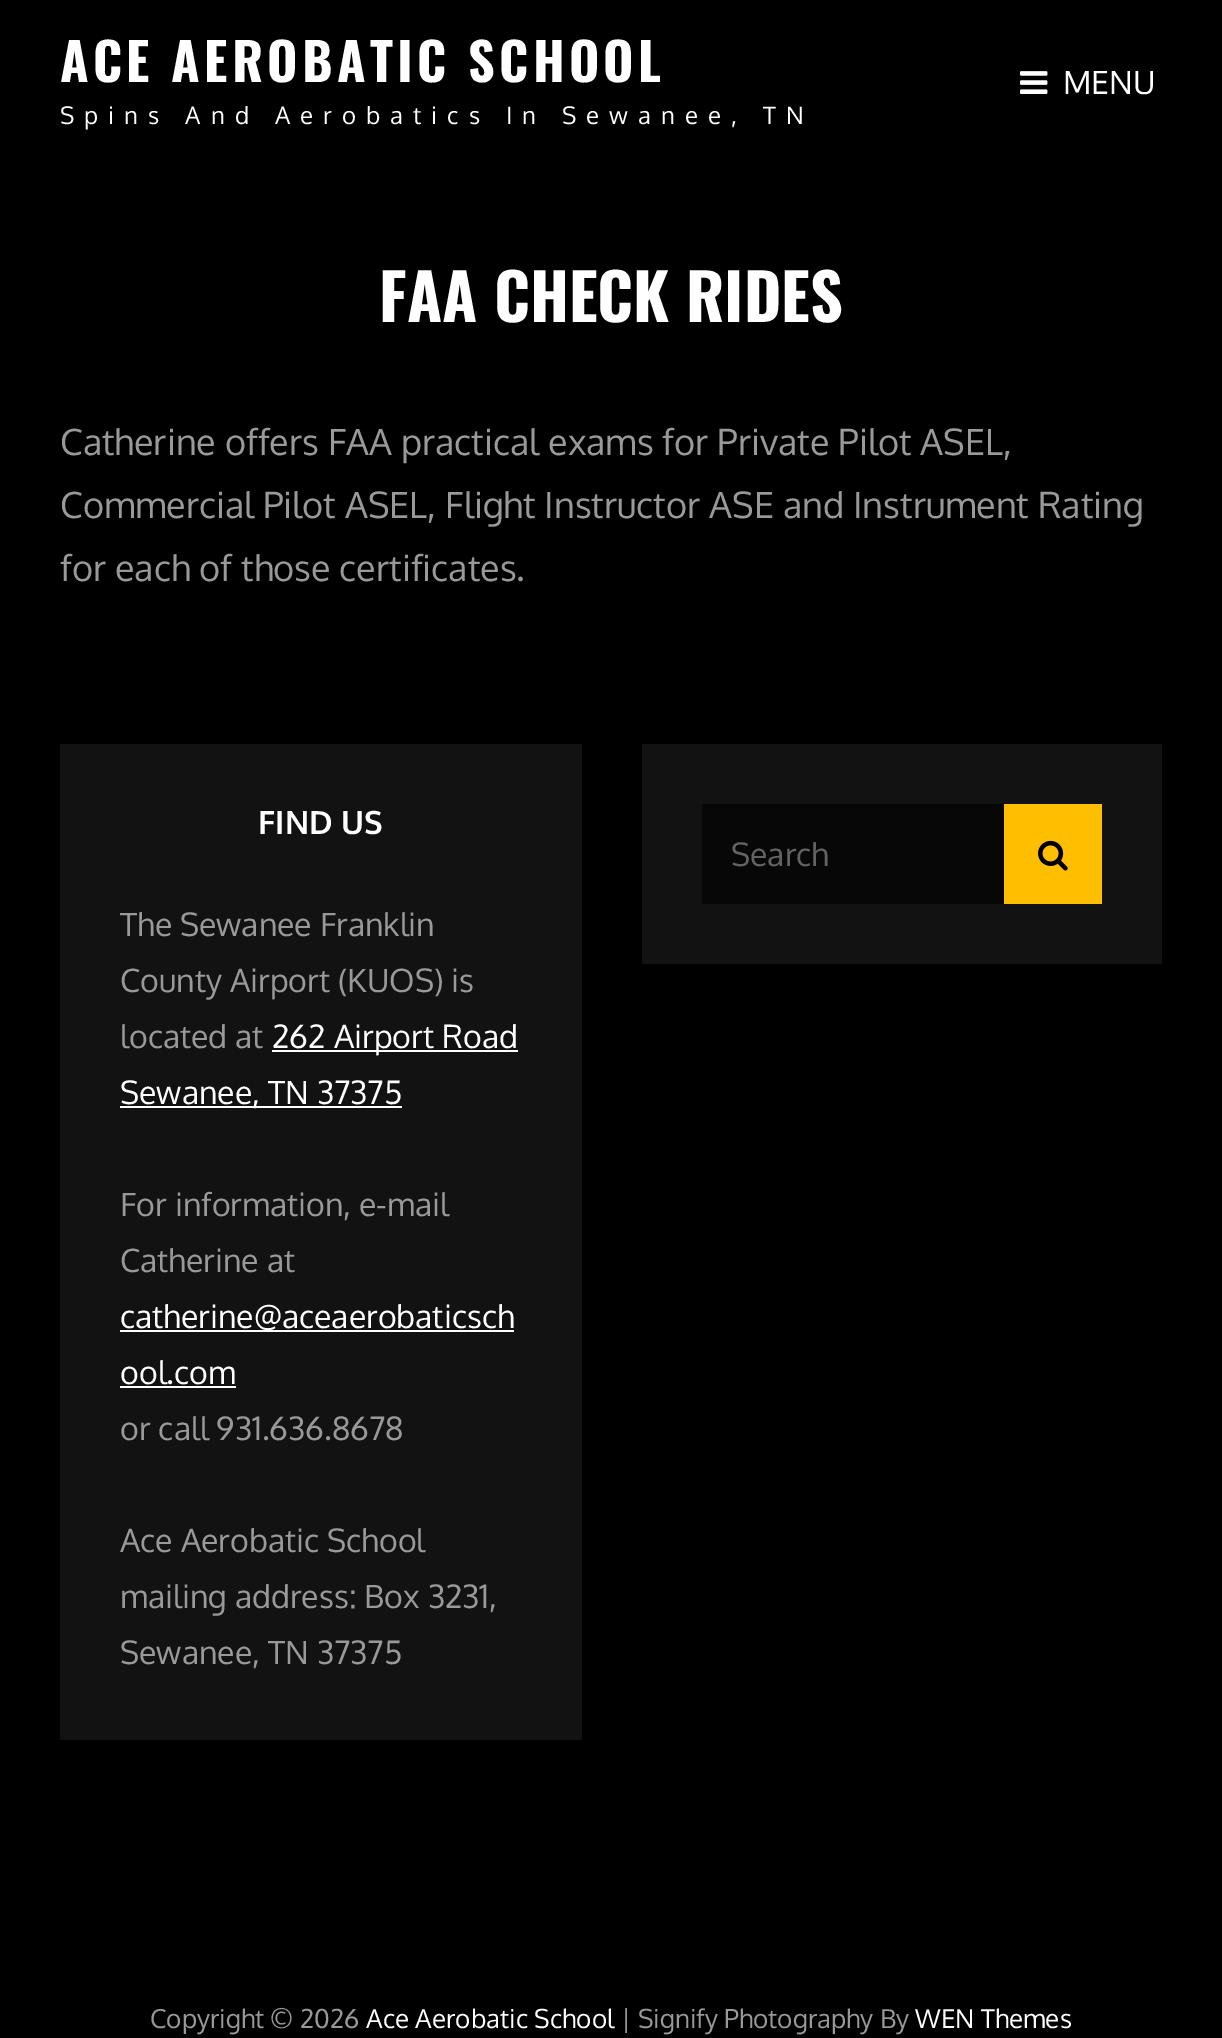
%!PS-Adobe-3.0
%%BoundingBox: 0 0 1222 2038
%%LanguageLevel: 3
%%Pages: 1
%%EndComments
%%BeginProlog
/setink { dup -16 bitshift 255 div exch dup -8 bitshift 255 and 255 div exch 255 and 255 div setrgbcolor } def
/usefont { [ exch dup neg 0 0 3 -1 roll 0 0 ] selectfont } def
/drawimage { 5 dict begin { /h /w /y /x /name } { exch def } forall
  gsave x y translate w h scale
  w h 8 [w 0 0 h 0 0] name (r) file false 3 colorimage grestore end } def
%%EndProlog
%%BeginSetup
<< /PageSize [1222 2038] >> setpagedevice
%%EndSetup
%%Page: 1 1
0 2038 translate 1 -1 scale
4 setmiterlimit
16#000000 setink
0 0 1222 2038 rectfill
/Oswald-Bold 52 usefont
16#FFFFFF setink
60 82 moveto 4.25 0 (ACE AEROBATIC SCHOOL) ashow
/Oxygen-Regular 24 usefont
60 124 moveto 10 0 (Spins And Aerobatics In Sewanee, TN) ashow
(img1.raw) 1020 71 28 23 drawimage
/Oxygen-Regular 32 usefont
1063 94 moveto (MENU) show
/Oswald-Bold 64 usefont
379 322 moveto (FAA CHECK RIDES) show
/Oxygen-Regular 36 usefont
16#999999 setink
[
    [(Catherine offers FAA practical exams for Private Pilot ASEL,) 60 455]
    [(Commercial Pilot ASEL, Flight Instructor ASE and Instrument Rating) 60 518]
    [(for each of those certificates.) 60 581]
] { aload pop moveto show } forall
16#121212 setink
60 744 522 996 rectfill
/Oxygen-Bold 32 usefont
16#FFFFFF setink
258 834 moveto (FIND US) show
/Oxygen-Regular 32 usefont
16#999999 setink
[
    [(The Sewanee Franklin) 120 936]
    [(County Airport \(KUOS\) is) 120 992]
    [(located at) 120 1048]
] { aload pop moveto show } forall
16#FFFFFF setink
272 1050 246 2 rectfill
272 1048 moveto (262 Airport Road) show
120 1106 282 2 rectfill
120 1104 moveto (Sewanee, TN 37375) show
16#999999 setink
120 1216 moveto (For information, e-mail) show
120 1272 moveto (Catherine at) show
16#FFFFFF setink
120 1330 394 2 rectfill
120 1328 moveto (catherine@aceaerobaticsch) show
120 1384 moveto (ool.com) show
120 1386 116 2 rectfill
16#999999 setink
[
    [(or call 931.636.8678) 120 1440]
    [(Ace Aerobatic School) 120 1552]
    [(mailing address: Box 3231,) 120 1608]
    [(Sewanee, TN 37375) 120 1664]
] { aload pop moveto show } forall
16#121212 setink
642 744 520 220 rectfill
16#070707 setink
702 804 302 100 rectfill
16#636363 setink
731 866 moveto (Search) show
16#FFBF00 setink
1004 804 98 100 rectfill
(img2.raw) 1038 840 30 31 drawimage
/Oxygen-Regular 26 usefont
16#999999 setink
150 2028 moveto (Copyright © 2026) show
16#FFFFFF setink
366 2028 moveto (Ace Aerobatic School) show
16#999999 setink
621 2028 moveto (| Signify Photography By) show
16#FFFFFF setink
915 2028 moveto (WEN Themes) show
showpage
%%EOF
